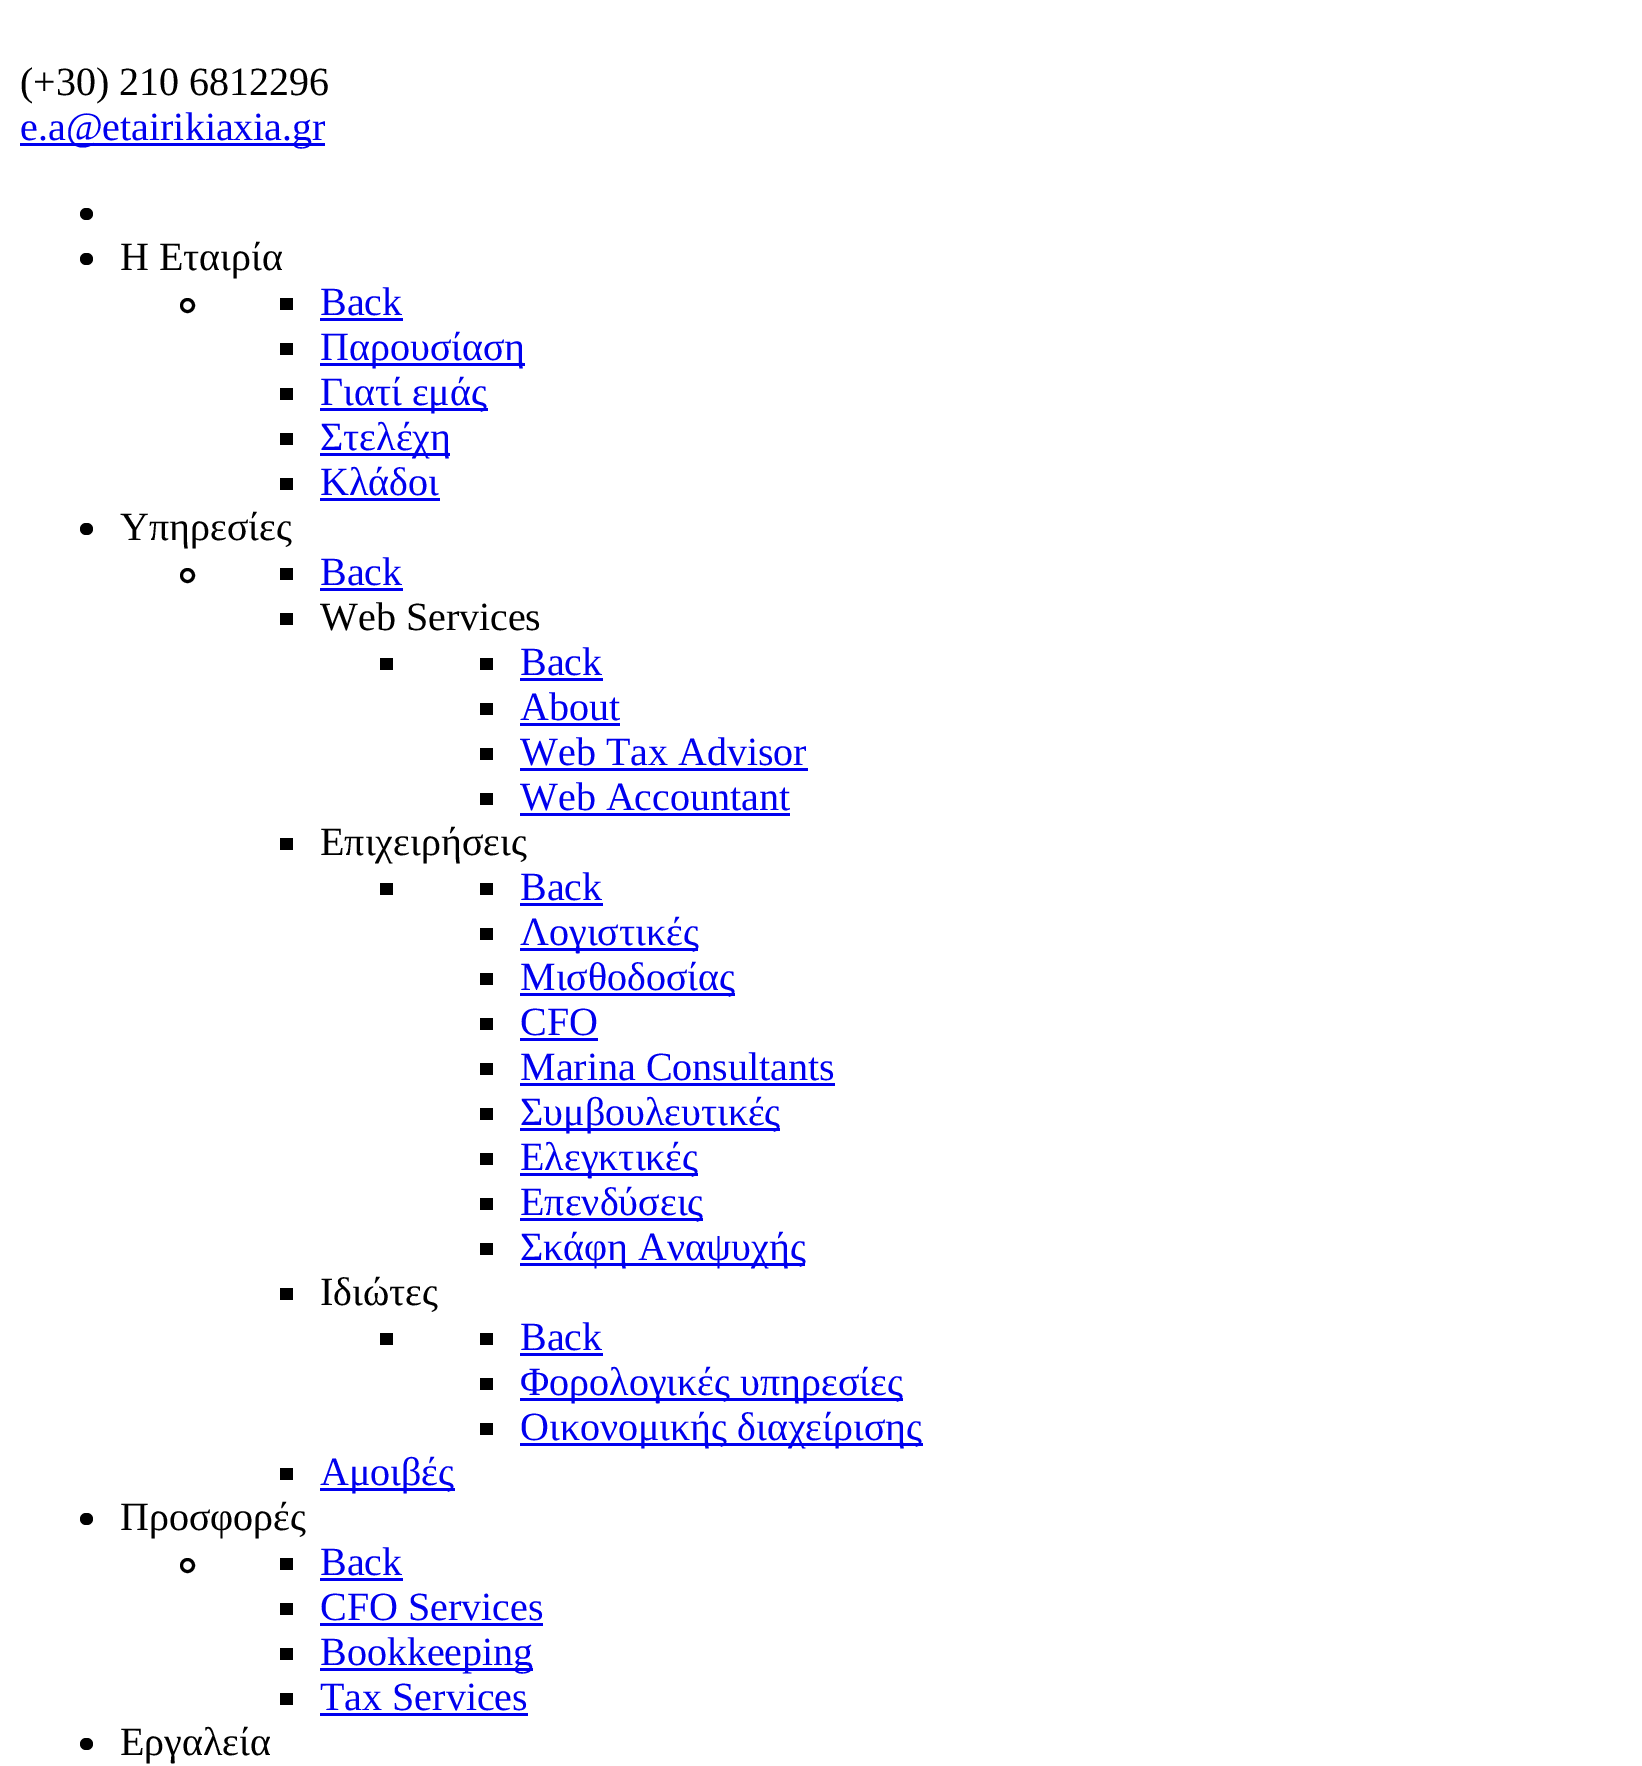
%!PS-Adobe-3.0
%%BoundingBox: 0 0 1642 1766
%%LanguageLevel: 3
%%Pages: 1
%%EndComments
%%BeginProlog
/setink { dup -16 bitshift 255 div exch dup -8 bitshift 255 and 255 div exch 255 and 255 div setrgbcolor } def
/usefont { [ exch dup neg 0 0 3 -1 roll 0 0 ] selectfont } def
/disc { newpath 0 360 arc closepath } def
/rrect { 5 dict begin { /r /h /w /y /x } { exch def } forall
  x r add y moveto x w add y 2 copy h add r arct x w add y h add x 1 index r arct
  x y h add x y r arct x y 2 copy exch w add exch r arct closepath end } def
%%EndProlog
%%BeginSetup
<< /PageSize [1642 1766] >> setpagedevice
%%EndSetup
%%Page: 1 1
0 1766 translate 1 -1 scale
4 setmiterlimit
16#FFFFFF setink
0 0 1642 1766 rectfill
/LiberationSerif-Regular 40 usefont
16#000000 setink
20 95 moveto (\(+30\) 210 6812296) show
16#0000EE setink
20 143 305 3 rectfill
20 140 moveto (e.a@etairikiaxia.gr) show
16#000000 setink
80 208 13 12 6 rrect fill
80 253 13 12 6 rrect fill
120 270 moveto (Η Εταιρία) show
3 setlinewidth
187.5 305.5 6 disc stroke
280 298 13 12 rectfill
16#0000EE setink
320 315 moveto (Back) show
[
    [320 318 83 3 16#0000EE]
    [280 343 13 12 16#000000]
    [320 363 205 3 16#0000EE]
] { aload pop setink rectfill } forall
320 360 moveto (Παρουσίαση) show
16#000000 setink
280 388 13 12 rectfill
16#0000EE setink
320 408 168 3 rectfill
320 405 moveto (Γιατί εμάς) show
16#000000 setink
280 433 13 12 rectfill
16#0000EE setink
320 453 130 3 rectfill
320 450 moveto (Στελέχη) show
16#000000 setink
280 478 13 12 rectfill
16#0000EE setink
320 495 moveto (Κλάδοι) show
320 498 120 3 rectfill
16#000000 setink
80 523 13 12 6 rrect fill
120 540 moveto (Υπηρεσίες) show
187.5 575.5 6 disc stroke
280 568 13 12 rectfill
16#0000EE setink
320 585 moveto (Back) show
320 588 83 3 rectfill
16#000000 setink
280 613 13 12 rectfill
320 630 moveto (Web Services) show
380 658 13 12 rectfill
480 658 13 12 rectfill
16#0000EE setink
520 675 moveto (Back) show
520 678 83 3 rectfill
16#000000 setink
480 703 13 12 rectfill
16#0000EE setink
520 720 moveto (About) show
520 723 100 3 rectfill
16#000000 setink
480 748 13 12 rectfill
16#0000EE setink
520 765 moveto (Web Tax Advisor) show
520 768 288 3 rectfill
16#000000 setink
480 793 13 12 rectfill
16#0000EE setink
520 810 moveto (Web Accountant) show
520 813 270 3 rectfill
16#000000 setink
280 838 13 12 rectfill
320 855 moveto (Επιχειρήσεις) show
380 883 13 12 rectfill
480 883 13 12 rectfill
16#0000EE setink
520 900 moveto (Back) show
[
    [520 903 83 3 16#0000EE]
    [480 928 13 12 16#000000]
    [520 948 178 3 16#0000EE]
] { aload pop setink rectfill } forall
520 945 moveto (Λογιστικές) show
16#000000 setink
480 973 13 12 rectfill
16#0000EE setink
520 993 215 3 rectfill
520 990 moveto (Μισθοδοσίας) show
16#000000 setink
480 1018 13 12 rectfill
16#0000EE setink
520 1035 moveto (CFO) show
520 1038 78 3 rectfill
16#000000 setink
480 1063 13 12 rectfill
16#0000EE setink
520 1080 moveto (Marina Consultants) show
[
    [520 1083 315 3 16#0000EE]
    [480 1108 13 12 16#000000]
    [520 1128 260 3 16#0000EE]
] { aload pop setink rectfill } forall
520 1125 moveto (Συμβουλευτικές) show
16#000000 setink
480 1153 13 12 rectfill
16#0000EE setink
520 1173 178 3 rectfill
520 1170 moveto (Ελεγκτικές) show
16#000000 setink
480 1198 13 12 rectfill
16#0000EE setink
520 1218 183 3 rectfill
520 1215 moveto (Επενδύσεις) show
16#000000 setink
480 1243 13 12 rectfill
16#0000EE setink
520 1263 285 3 rectfill
520 1260 moveto (Σκάφη Αναψυχής) show
16#000000 setink
280 1288 13 12 rectfill
320 1305 moveto (Ιδιώτες) show
380 1333 13 12 rectfill
480 1333 13 12 rectfill
16#0000EE setink
520 1350 moveto (Back) show
[
    [520 1353 83 3 16#0000EE]
    [480 1378 13 12 16#000000]
    [520 1398 383 3 16#0000EE]
] { aload pop setink rectfill } forall
520 1395 moveto (Φορολογικές υπηρεσίες) show
16#000000 setink
480 1423 13 12 rectfill
16#0000EE setink
520 1443 403 3 rectfill
520 1440 moveto (Οικονομικής διαχείρισης) show
16#000000 setink
280 1468 13 12 rectfill
16#0000EE setink
320 1488 135 3 rectfill
320 1485 moveto (Αμοιβές) show
16#000000 setink
80 1513 13 12 6 rrect fill
120 1530 moveto (Προσφορές) show
187.5 1565.5 6 disc stroke
280 1558 13 12 rectfill
16#0000EE setink
320 1575 moveto (Back) show
320 1578 83 3 rectfill
16#000000 setink
280 1603 13 12 rectfill
16#0000EE setink
320 1620 moveto (CFO Services) show
[
    [320 1623 223 3 16#0000EE]
    [280 1648 13 12 16#000000]
    [320 1668 213 3 16#0000EE]
] { aload pop setink rectfill } forall
320 1665 moveto (Bookkeeping) show
16#000000 setink
280 1693 13 12 rectfill
16#0000EE setink
320 1710 moveto (Tax Services) show
320 1713 208 3 rectfill
16#000000 setink
80 1738 13 12 6 rrect fill
120 1755 moveto (Εργαλεία) show
showpage
%%EOF
